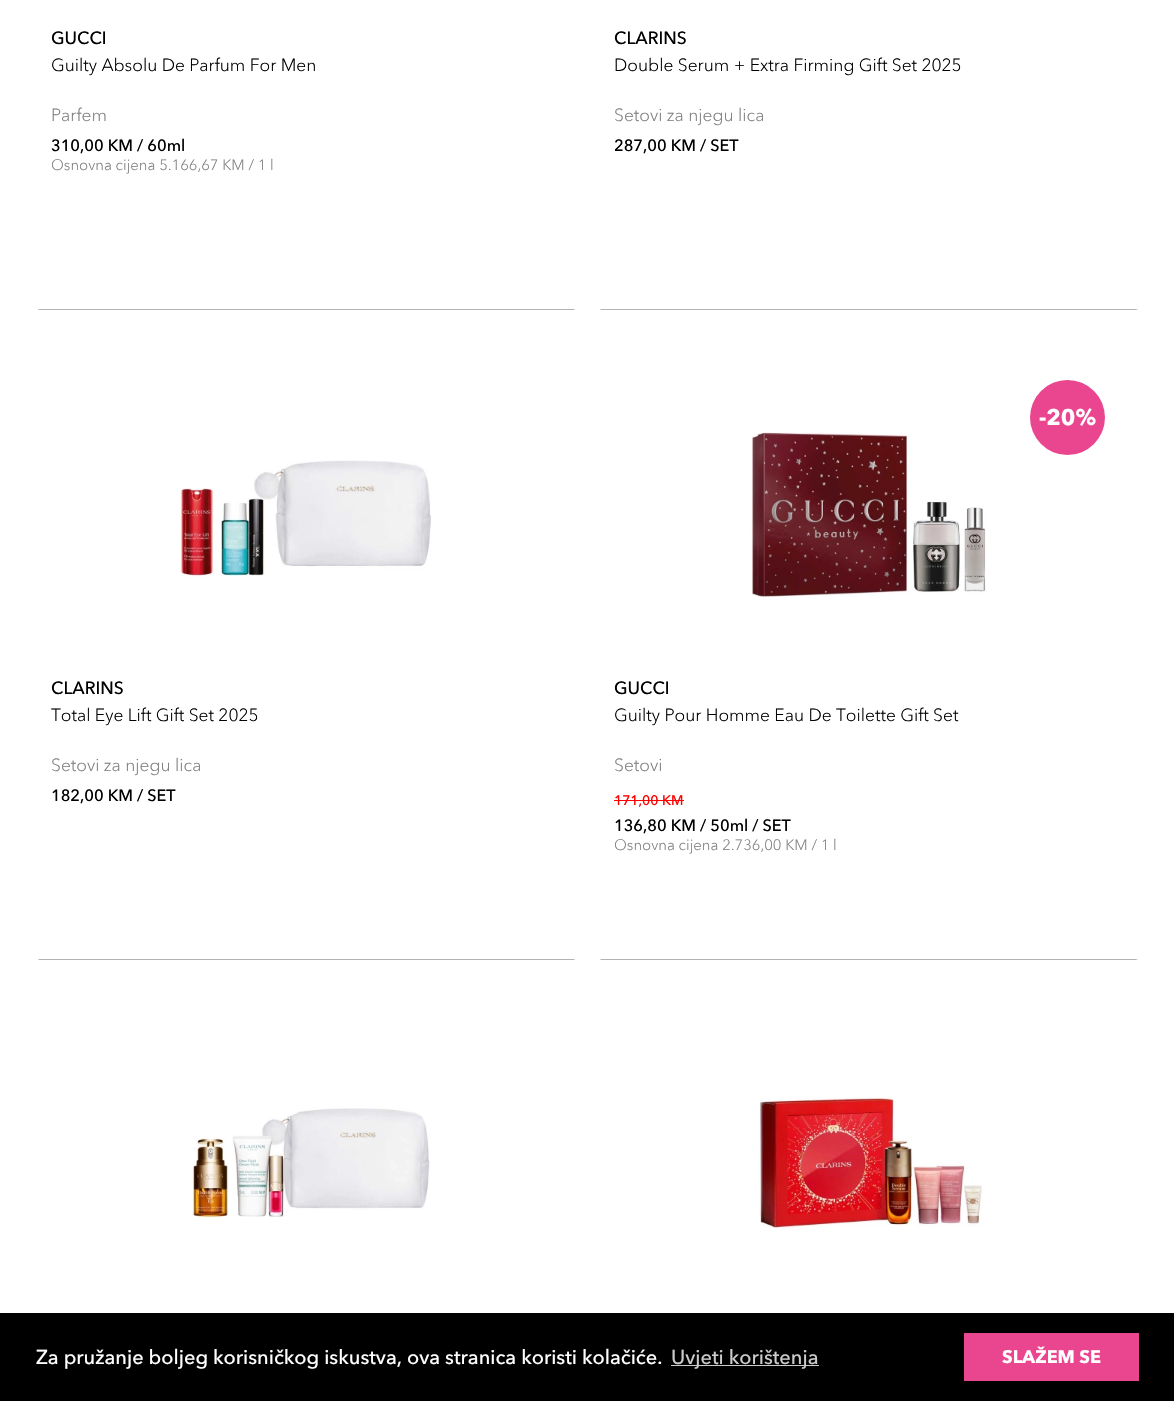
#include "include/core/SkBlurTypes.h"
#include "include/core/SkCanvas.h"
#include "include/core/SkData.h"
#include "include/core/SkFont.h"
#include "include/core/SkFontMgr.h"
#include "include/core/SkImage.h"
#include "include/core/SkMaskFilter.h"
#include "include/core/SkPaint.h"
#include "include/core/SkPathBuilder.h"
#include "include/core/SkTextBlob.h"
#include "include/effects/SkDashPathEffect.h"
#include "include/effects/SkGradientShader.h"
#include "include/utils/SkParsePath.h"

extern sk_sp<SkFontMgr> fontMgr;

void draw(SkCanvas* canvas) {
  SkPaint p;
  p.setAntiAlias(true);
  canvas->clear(SK_ColorWHITE);
  p.setColor(SkColorSetRGB(179, 179, 179));
  canvas->drawPath(SkPathBuilder().moveTo(575, 310).lineTo(38, 310).lineTo(39, 309).lineTo(574, 309).close().detach(), p);
  canvas->drawPath(SkPathBuilder().moveTo(1138, 310).lineTo(600, 310).lineTo(601, 309).lineTo(1136, 309).close().detach(), p);
  canvas->drawPath(SkPathBuilder().moveTo(575, 960).lineTo(38, 960).lineTo(39, 959).lineTo(574, 959).close().detach(), p);
  canvas->drawImageRect(SkImages::DeferredFromEncodedData(SkData::MakeFromFileName("images/1.png")), SkRect::MakeLTRB(180, 460, 431, 577), SkSamplingOptions());
  canvas->drawPath(SkPathBuilder().moveTo(1138, 960).lineTo(600, 960).lineTo(601, 959).lineTo(1136, 959).close().detach(), p);
  p.setColor(SkColorSetRGB(234, 70, 143));
  canvas->drawCircle(1067.5f, 417.5f, 37.5f, p);
  canvas->drawImageRect(SkImages::DeferredFromEncodedData(SkData::MakeFromFileName("images/2.png")), SkRect::MakeLTRB(751, 432, 986, 597), SkSamplingOptions());
  p.setColor(SkColorSetRGB(255, 0, 0));
  canvas->drawRect(SkRect::MakeLTRB(614, 800, 684, 801), p);
  canvas->drawImageRect(SkImages::DeferredFromEncodedData(SkData::MakeFromFileName("images/3.png")), SkRect::MakeLTRB(192, 1108, 430, 1218), SkSamplingOptions());
  canvas->drawImageRect(SkImages::DeferredFromEncodedData(SkData::MakeFromFileName("images/4.png")), SkRect::MakeLTRB(759, 1097, 983, 1229), SkSamplingOptions());
  p.setColor(SK_ColorBLACK);
  canvas->drawRect(SkRect::MakeLTRB(0, 1313, 1174, 1401), p);
  p.setColor(SkColorSetRGB(204, 204, 204));
  canvas->drawRect(SkRect::MakeLTRB(671, 1365, 819, 1366), p);
  p.setColor(SkColorSetRGB(234, 70, 143));
  canvas->drawRect(SkRect::MakeLTRB(964, 1333, 1139, 1381), p);
  SkFont font1(fontMgr->matchFamilyStyle("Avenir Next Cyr", SkFontStyle(500, SkFontStyle::kNormal_Width, SkFontStyle::kUpright_Slant)), 17.5f);
  font1.setSubpixel(true);
  p.setColor(SK_ColorBLACK);
  canvas->drawString("GUCCI", 51, 44, font1, p);
  SkFont font2(fontMgr->matchFamilyStyle("Avenir Next Cyr", SkFontStyle(300, SkFontStyle::kNormal_Width, SkFontStyle::kUpright_Slant)), 17.5f);
  font2.setSubpixel(true);
  canvas->drawString("Guilty Absolu De Parfum For Men", 51, 71, font2, p);
  p.setColor(SkColorSetRGB(128, 128, 128));
  canvas->drawString("Parfem", 51, 121, font2, p);
  SkFont font3(fontMgr->matchFamilyStyle("Avenir Next Cyr", SkFontStyle(500, SkFontStyle::kNormal_Width, SkFontStyle::kUpright_Slant)), 16.25f);
  font3.setSubpixel(true);
  p.setColor(SK_ColorBLACK);
  canvas->drawString("310,00 KM / 60ml", 51, 151, font3, p);
  SkFont font4(fontMgr->matchFamilyStyle("Avenir Next Cyr", SkFontStyle(300, SkFontStyle::kNormal_Width, SkFontStyle::kUpright_Slant)), 15);
  font4.setSubpixel(true);
  p.setColor(SkColorSetRGB(128, 128, 128));
  canvas->drawString("Osnovna cijena 5.166,67 KM / 1 l", 51, 170, font4, p);
  p.setColor(SK_ColorBLACK);
  canvas->drawString("CLARINS", 614, 44, font1, p);
  canvas->drawString("Double Serum + Extra Firming Gift Set 2025", 614, 71, font2, p);
  p.setColor(SkColorSetRGB(128, 128, 128));
  canvas->drawString("Setovi za njegu lica", 614, 121, font2, p);
  p.setColor(SK_ColorBLACK);
  canvas->drawString("287,00 KM / SET", 614, 151, font3, p);
  canvas->drawString("CLARINS", 51, 694, font1, p);
  canvas->drawString("Total Eye Lift Gift Set 2025", 51, 721, font2, p);
  p.setColor(SkColorSetRGB(128, 128, 128));
  canvas->drawString("Setovi za njegu lica", 51, 771, font2, p);
  p.setColor(SK_ColorBLACK);
  canvas->drawString("182,00 KM / SET", 51, 801, font3, p);
  SkFont font5(fontMgr->matchFamilyStyle("Avenir Next Cyr", SkFontStyle::Bold()), 22.5f);
  font5.setSubpixel(true);
  p.setColor(SK_ColorWHITE);
  canvas->drawString("-20%", 1039, 425, font5, p);
  p.setColor(SK_ColorBLACK);
  canvas->drawString("GUCCI", 614, 694, font1, p);
  canvas->drawString("Guilty Pour Homme Eau De Toilette Gift Set", 614, 721, font2, p);
  p.setColor(SkColorSetRGB(128, 128, 128));
  canvas->drawString("Setovi", 614, 771, font2, p);
  SkFont font6(fontMgr->matchFamilyStyle("Avenir Next Cyr", SkFontStyle(500, SkFontStyle::kNormal_Width, SkFontStyle::kUpright_Slant)), 13.75f);
  font6.setSubpixel(true);
  p.setColor(SkColorSetRGB(255, 0, 0));
  canvas->drawString("171,00 KM", 614, 805, font6, p);
  p.setColor(SK_ColorBLACK);
  canvas->drawString("136,80 KM / 50ml / SET", 614, 831, font3, p);
  p.setColor(SkColorSetRGB(128, 128, 128));
  canvas->drawString("Osnovna cijena 2.736,00 KM / 1 l", 614, 850, font4, p);
  SkFont font7(fontMgr->matchFamilyStyle("Avenir Next Cyr", SkFontStyle(500, SkFontStyle::kNormal_Width, SkFontStyle::kUpright_Slant)), 20);
  font7.setSubpixel(true);
  p.setColor(SK_ColorWHITE);
  canvas->drawString("Za pružanje boljeg korisničkog iskustva, ova stranica koristi kolačiće.", 36, 1364, font7, p);
  p.setColor(SkColorSetRGB(204, 204, 204));
  canvas->drawString("Uvjeti korištenja", 671, 1364, font7, p);
  SkFont font8(fontMgr->matchFamilyStyle("Avenir Next Cyr", SkFontStyle::Bold()), 18);
  font8.setSubpixel(true);
  p.setColor(SK_ColorWHITE);
  canvas->drawString("SLAŽEM SE", 1002, 1363, font8, p);
}
